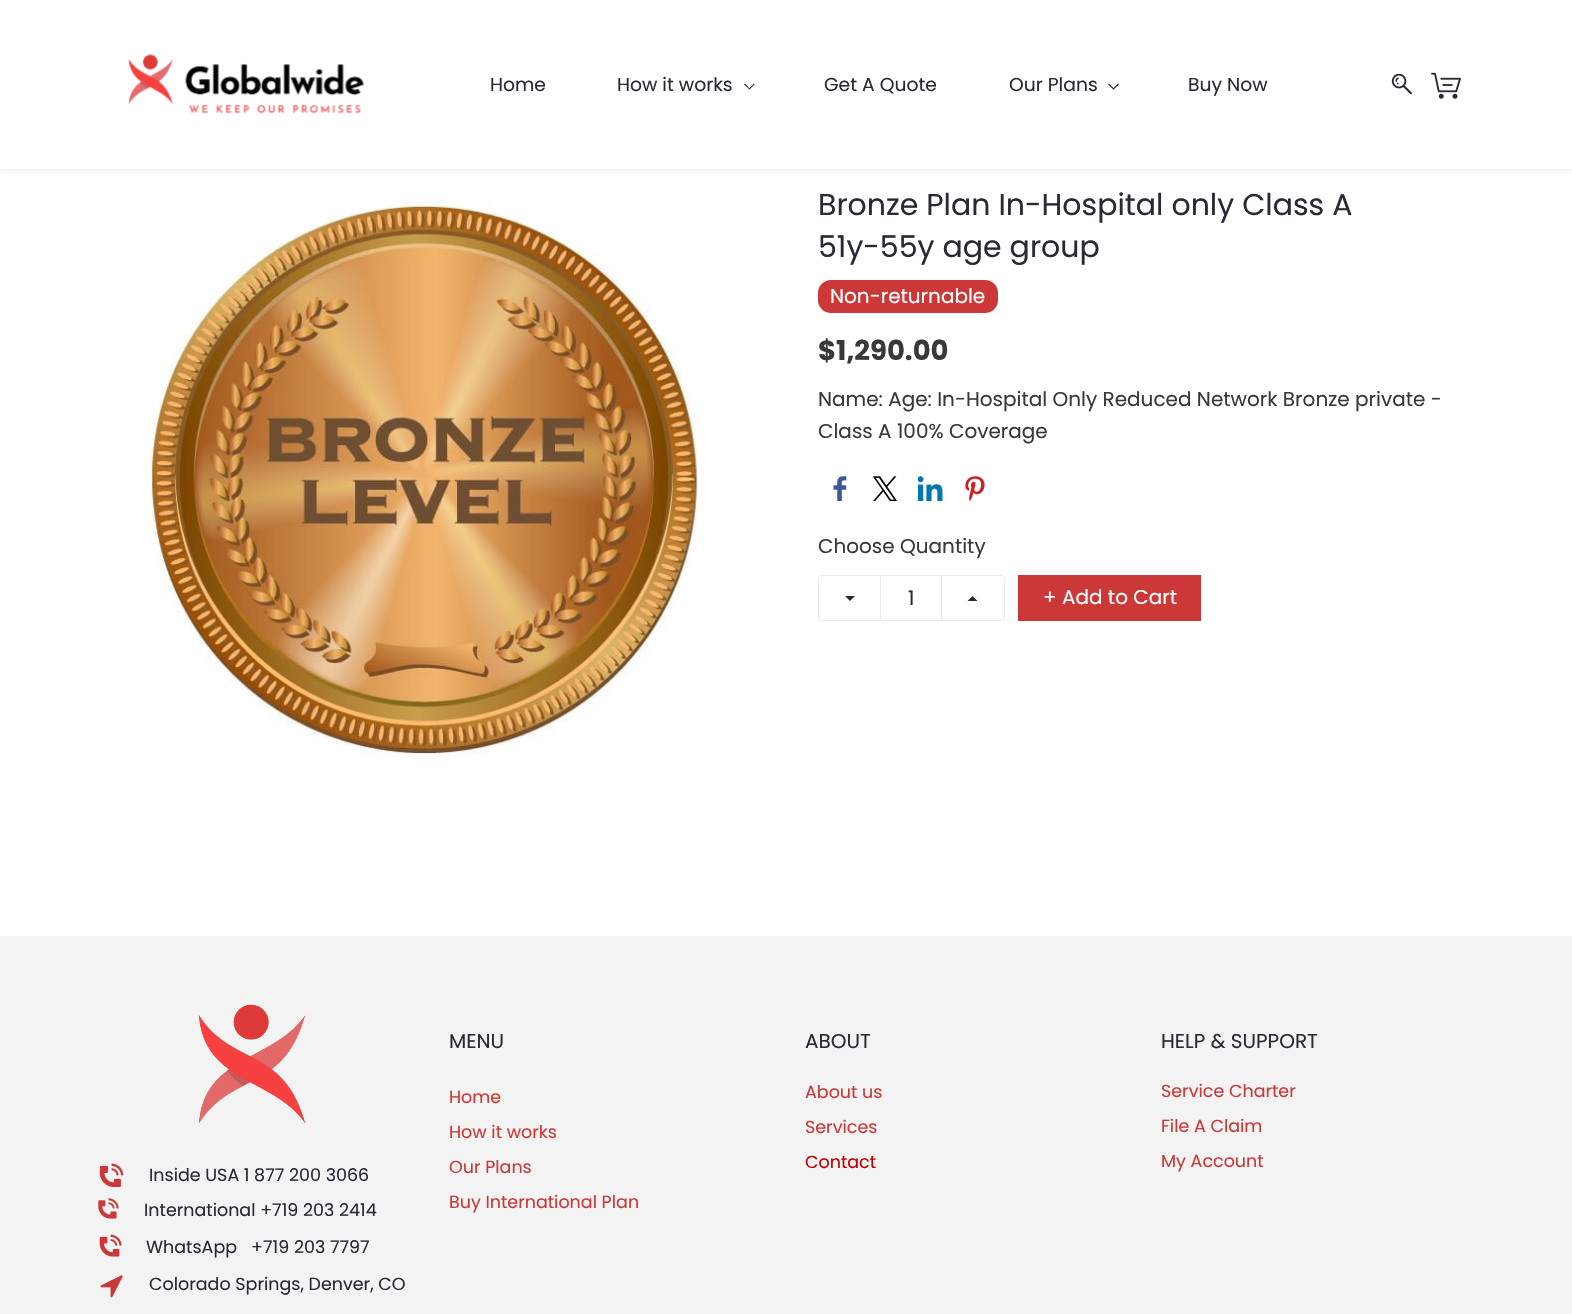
#include "include/core/SkBlurTypes.h"
#include "include/core/SkCanvas.h"
#include "include/core/SkData.h"
#include "include/core/SkFont.h"
#include "include/core/SkFontMgr.h"
#include "include/core/SkImage.h"
#include "include/core/SkMaskFilter.h"
#include "include/core/SkPaint.h"
#include "include/core/SkPathBuilder.h"
#include "include/core/SkTextBlob.h"
#include "include/effects/SkDashPathEffect.h"
#include "include/effects/SkGradientShader.h"
#include "include/utils/SkParsePath.h"

extern sk_sp<SkFontMgr> fontMgr;

void draw(SkCanvas* canvas) {
  SkPaint p;
  p.setAntiAlias(true);
  canvas->clear(SK_ColorWHITE);
  canvas->save();
  canvas->clipPath(SkPathBuilder(SkPathFillType::kEvenOdd).moveTo(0, 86).lineTo(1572, 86).lineTo(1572, 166).lineTo(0, 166).close().moveTo(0, 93).lineTo(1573, 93).lineTo(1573, 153).lineTo(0, 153).close().detach(), true);
  p.setColor(SkColorSetARGB(13, 0, 0, 0));
  p.setMaskFilter(SkMaskFilter::MakeBlur(kNormal_SkBlurStyle, 3));
  canvas->drawRect(SkRect::MakeLTRB(0, 96, 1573, 156), p);
  p.setMaskFilter(nullptr);
  canvas->restore();
  canvas->save();
  canvas->clipRect(SkRect::MakeLTRB(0, 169, 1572, 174));
  p.setMaskFilter(SkMaskFilter::MakeBlur(kNormal_SkBlurStyle, 3));
  canvas->drawRect(SkRect::MakeLTRB(0, 4, 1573, 173), p);
  p.setMaskFilter(nullptr);
  canvas->restore();
  p.setColor(SkColorSetARGB(230, 255, 255, 255));
  canvas->drawRect(SkRect::MakeLTRB(0, 152, 1572, 169), p);
  canvas->drawImageRect(SkImages::DeferredFromEncodedData(SkData::MakeFromFileName("images/1.png")), SkRect::MakeLTRB(128, 54, 365, 114), SkSamplingOptions());
  p.setColor(SkColorSetRGB(40, 42, 52));
  canvas->drawPath(SkPathBuilder().moveTo(754.5f, 84.5f).lineTo(749.5f, 89.5f).lineTo(748.5f, 89).lineTo(754, 83.5f).close().detach(), p);
  canvas->drawPath(SkPathBuilder().moveTo(750, 89).lineTo(749.5f, 89.5f).lineTo(744, 84.5f).lineTo(745, 83.5f).close().detach(), p);
  canvas->drawPath(SkPathBuilder().moveTo(1119, 84.5f).lineTo(1113.5f, 89.5f).lineTo(1112.5f, 89).lineTo(1118, 83.5f).close().detach(), p);
  canvas->drawPath(SkPathBuilder().moveTo(1114.5f, 89).lineTo(1113.5f, 89.5f).lineTo(1108, 84.5f).lineTo(1109, 83.5f).close().detach(), p);
  canvas->drawImageRect(SkImages::DeferredFromEncodedData(SkData::MakeFromFileName("images/2.png")), SkRect::MakeLTRB(1391, 74, 1412, 95), SkSamplingOptions());
  canvas->drawImageRect(SkImages::DeferredFromEncodedData(SkData::MakeFromFileName("images/3.png")), SkRect::MakeLTRB(1431, 72, 1461, 99), SkSamplingOptions());
  canvas->drawImageRect(SkImages::DeferredFromEncodedData(SkData::MakeFromFileName("images/4.png")), SkRect::MakeLTRB(144, 200, 699, 754), SkSamplingOptions());
  p.setColor(SkColorSetRGB(204, 55, 55));
  canvas->drawRoundRect(SkRect::MakeLTRB(818, 280, 998, 313), 13, 13, p);
  canvas->drawImageRect(SkImages::DeferredFromEncodedData(SkData::MakeFromFileName("images/5.png")), SkRect::MakeLTRB(833, 476, 847, 501), SkSamplingOptions());
  canvas->drawImageRect(SkImages::DeferredFromEncodedData(SkData::MakeFromFileName("images/6.png")), SkRect::MakeLTRB(873, 476, 897, 501), SkSamplingOptions());
  canvas->drawImageRect(SkImages::DeferredFromEncodedData(SkData::MakeFromFileName("images/7.png")), SkRect::MakeLTRB(918, 476, 943, 501), SkSamplingOptions());
  canvas->drawImageRect(SkImages::DeferredFromEncodedData(SkData::MakeFromFileName("images/8.png")), SkRect::MakeLTRB(965, 476, 985, 501), SkSamplingOptions());
  p.setStyle(SkPaint::kStroke_Style);
  p.setStrokeWidth(1);
  p.setColor(SkColorSetRGB(235, 235, 235));
  canvas->drawRoundRect(SkRect::MakeLTRB(818.5f, 575.5f, 1004.5f, 620.5f), 3.5f, 3.5f, p);
  p.setStyle(SkPaint::kFill_Style);
  p.setColor(SK_ColorWHITE);
  canvas->drawPath(SkPathBuilder().moveTo(821.5f, 576).lineTo(880, 576).lineTo(880, 620).lineTo(821.5f, 620).cubicTo(820, 620, 819, 619, 819, 617.5f).lineTo(819, 578.5f).cubicTo(819, 577, 820, 576, 821.5f, 576).close().detach(), p);
  p.setColor(SkColorSetRGB(235, 235, 235));
  canvas->drawRect(SkRect::MakeLTRB(941, 576, 942, 620), p);
  canvas->drawRect(SkRect::MakeLTRB(880, 576, 881, 620), p);
  p.setColor(SK_ColorWHITE);
  canvas->drawPath(SkPathBuilder().moveTo(943, 576).lineTo(1001.5f, 576).cubicTo(1003, 576, 1004, 577, 1004, 578.5f).lineTo(1004, 617.5f).cubicTo(1004, 619, 1003, 620, 1001.5f, 620).lineTo(943, 620).close().detach(), p);
  p.setColor(SkColorSetRGB(40, 42, 52));
  canvas->drawPath(SkPathBuilder().moveTo(845, 596).lineTo(855, 596).lineTo(850, 601).close().detach(), p);
  canvas->drawPath(SkPathBuilder().moveTo(977.5f, 601).lineTo(967.5f, 601).lineTo(972.5f, 596).close().detach(), p);
  p.setColor(SkColorSetRGB(204, 55, 55));
  canvas->drawRect(SkRect::MakeLTRB(1018, 575, 1201, 621), p);
  p.setColor(SkColorSetRGB(243, 243, 244));
  canvas->drawRect(SkRect::MakeLTRB(0, 936, 1572, 1314), p);
  canvas->drawImageRect(SkImages::DeferredFromEncodedData(SkData::MakeFromFileName("images/9.png")), SkRect::MakeLTRB(198, 1004, 306, 1124), SkSamplingOptions());
  canvas->drawImageRect(SkImages::DeferredFromEncodedData(SkData::MakeFromFileName("images/10.png")), SkRect::MakeLTRB(99, 1163, 124, 1187), SkSamplingOptions());
  canvas->drawImageRect(SkImages::DeferredFromEncodedData(SkData::MakeFromFileName("images/11.png")), SkRect::MakeLTRB(98, 1198, 119, 1219), SkSamplingOptions());
  canvas->drawImageRect(SkImages::DeferredFromEncodedData(SkData::MakeFromFileName("images/12.png")), SkRect::MakeLTRB(99, 1234, 122, 1257), SkSamplingOptions());
  canvas->drawImageRect(SkImages::DeferredFromEncodedData(SkData::MakeFromFileName("images/13.png")), SkRect::MakeLTRB(100, 1275, 123, 1298), SkSamplingOptions());
  SkFont font1(fontMgr->matchFamilyStyle("Poppins", SkFontStyle::Normal()), 18.75f);
  font1.setSubpixel(true);
  p.setColor(SkColorSetRGB(40, 42, 52));
  canvas->drawString("Home", 490, 91, font1, p);
  canvas->drawString("How it works", 617, 91, font1, p);
  canvas->drawString("Get A Quote", 824, 91, font1, p);
  canvas->drawString("Our Plans", 1009, 91, font1, p);
  canvas->drawString("Buy Now", 1188, 91, font1, p);
  SkFont font2(fontMgr->matchFamilyStyle("Poppins", SkFontStyle::Normal()), 30);
  font2.setSubpixel(true);
  canvas->drawString("Bronze Plan In-Hospital only Class A", 818, 215, font2, p);
  canvas->drawString("51y-55y age group", 818, 257, font2, p);
  SkFont font3(fontMgr->matchFamilyStyle("Poppins", SkFontStyle::Normal()), 20);
  font3.setSubpixel(true);
  p.setColor(SK_ColorWHITE);
  canvas->drawString("Non-returnable", 830, 303, font3, p);
  SkFont font4(fontMgr->matchFamilyStyle("Poppins", SkFontStyle::Bold()), 27.5f);
  font4.setSubpixel(true);
  p.setColor(SkColorSetRGB(57, 57, 57));
  canvas->drawString("$1,290.00", 818, 360, font4, p);
  canvas->drawString("Name: Age: In-Hospital Only Reduced Network Bronze private -", 818, 406, font3, p);
  canvas->drawString("Class A 100% Coverage", 818, 438, font3, p);
  canvas->drawString("Choose Quantity", 818, 553, font3, p);
  p.setColor(SkColorSetRGB(40, 42, 52));
  canvas->drawString("1", 908, 605, font3, p);
  p.setColor(SK_ColorWHITE);
  canvas->drawString("+ Add to Cart", 1043, 604, font3, p);
  p.setColor(SkColorSetRGB(40, 42, 52));
  canvas->drawString("MENU", 449, 1048, font3, p);
  SkFont font5(fontMgr->matchFamilyStyle("Poppins", SkFontStyle::Normal()), 17.5f);
  font5.setSubpixel(true);
  p.setColor(SkColorSetRGB(204, 55, 55));
  canvas->drawString("Home", 449, 1103, font5, p);
  canvas->drawString("How it works", 449, 1138, font5, p);
  canvas->drawString("Our Plans", 449, 1173, font5, p);
  canvas->drawString("Buy International Plan", 449, 1208, font5, p);
  p.setColor(SkColorSetRGB(40, 42, 52));
  canvas->drawString("ABOUT", 805, 1048, font3, p);
  p.setColor(SkColorSetRGB(204, 55, 55));
  canvas->drawString("About us", 805, 1098, font5, p);
  canvas->drawString("Services", 805, 1133, font5, p);
  p.setColor(SkColorSetRGB(192, 0, 0));
  canvas->drawString("Contact", 805, 1168, font5, p);
  p.setColor(SkColorSetRGB(40, 42, 52));
  canvas->drawString("HELP & SUPPORT", 1161, 1048, font3, p);
  p.setColor(SkColorSetRGB(204, 55, 55));
  canvas->drawString("Service Charter", 1161, 1097, font5, p);
  canvas->drawString("File A Claim", 1161, 1132, font5, p);
  canvas->drawString("My Account", 1161, 1167, font5, p);
  p.setColor(SkColorSetRGB(40, 42, 52));
  canvas->drawString("Inside USA 1 877 200 3066", 149, 1181, font5, p);
  canvas->drawString("International +719 203 2414", 144, 1216, font5, p);
  canvas->drawString("WhatsApp   +719 203 7797", 146, 1253, font5, p);
  canvas->drawString("Colorado Springs, Denver, CO", 149, 1290, font5, p);
}
